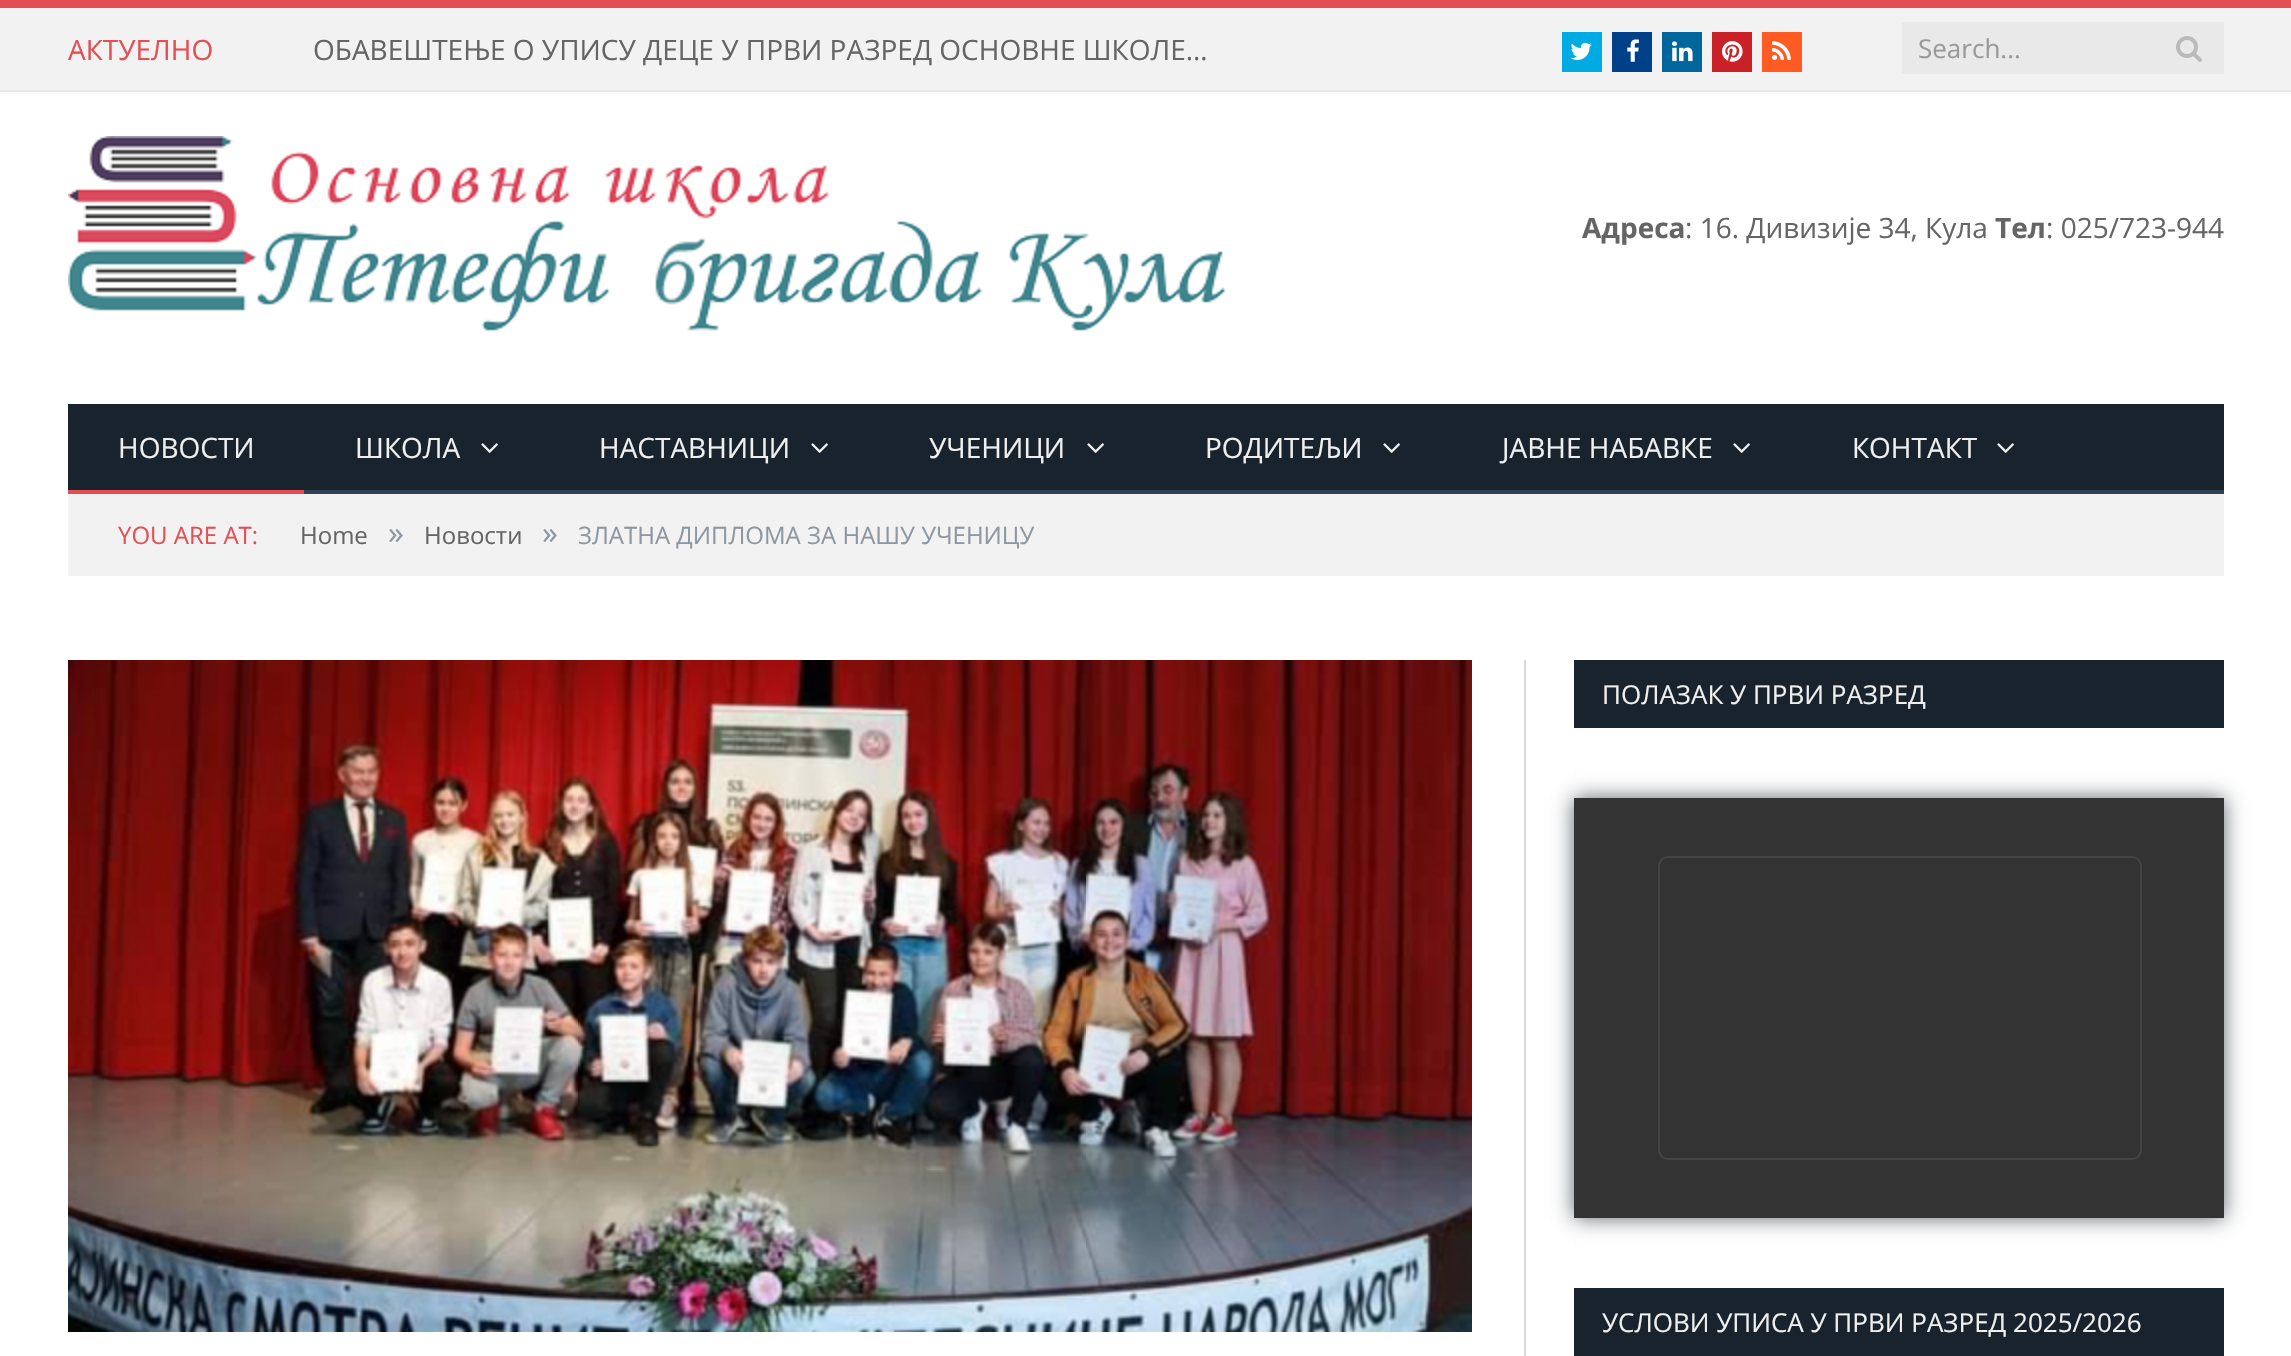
#include "include/core/SkBlurTypes.h"
#include "include/core/SkCanvas.h"
#include "include/core/SkData.h"
#include "include/core/SkFont.h"
#include "include/core/SkFontMgr.h"
#include "include/core/SkImage.h"
#include "include/core/SkMaskFilter.h"
#include "include/core/SkPaint.h"
#include "include/core/SkPathBuilder.h"
#include "include/core/SkTextBlob.h"
#include "include/effects/SkDashPathEffect.h"
#include "include/effects/SkGradientShader.h"
#include "include/utils/SkParsePath.h"

extern sk_sp<SkFontMgr> fontMgr;

void draw(SkCanvas* canvas) {
  SkPaint p;
  p.setAntiAlias(true);
  canvas->clear(SK_ColorWHITE);
  p.setColor(SkColorSetRGB(242, 242, 242));
  canvas->drawRect(SkRect::MakeLTRB(0, 8, 2291, 90), p);
  p.setColor(SkColorSetRGB(229, 78, 83));
  canvas->drawRect(SkRect::MakeLTRB(0, 0, 2291, 8), p);
  p.setColor(SkColorSetRGB(231, 231, 231));
  canvas->drawRect(SkRect::MakeLTRB(0, 90, 2291, 92), p);
  p.setColor(SkColorSetRGB(0, 171, 227));
  canvas->drawRect(SkRect::MakeLTRB(1562, 32, 1602, 72), p);
  canvas->drawImageRect(SkImages::DeferredFromEncodedData(SkData::MakeFromFileName("images/1.png")), SkRect::MakeLTRB(1570, 42, 1592, 60), SkSamplingOptions());
  p.setColor(SkColorSetRGB(0, 64, 136));
  canvas->drawRect(SkRect::MakeLTRB(1612, 32, 1652, 72), p);
  canvas->drawImageRect(SkImages::DeferredFromEncodedData(SkData::MakeFromFileName("images/2.png")), SkRect::MakeLTRB(1627, 39, 1639, 62), SkSamplingOptions());
  p.setColor(SkColorSetRGB(1, 102, 156));
  canvas->drawRect(SkRect::MakeLTRB(1662, 32, 1702, 72), p);
  canvas->drawImageRect(SkImages::DeferredFromEncodedData(SkData::MakeFromFileName("images/3.png")), SkRect::MakeLTRB(1672, 41, 1693, 62), SkSamplingOptions());
  p.setColor(SkColorSetRGB(202, 33, 40));
  canvas->drawRect(SkRect::MakeLTRB(1712, 32, 1752, 72), p);
  canvas->drawImageRect(SkImages::DeferredFromEncodedData(SkData::MakeFromFileName("images/4.png")), SkRect::MakeLTRB(1722, 41, 1743, 62), SkSamplingOptions());
  p.setColor(SkColorSetRGB(255, 91, 34));
  canvas->drawRect(SkRect::MakeLTRB(1762, 32, 1802, 72), p);
  canvas->drawImageRect(SkImages::DeferredFromEncodedData(SkData::MakeFromFileName("images/5.png")), SkRect::MakeLTRB(1772, 41, 1791, 60), SkSamplingOptions());
  p.setColor(SkColorSetRGB(233, 233, 233));
  canvas->drawRect(SkRect::MakeLTRB(1902, 22, 2224, 74), p);
  canvas->drawImageRect(SkImages::DeferredFromEncodedData(SkData::MakeFromFileName("images/6.png")), SkRect::MakeLTRB(2176, 36, 2202, 62), SkSamplingOptions());
  canvas->drawImageRect(SkImages::DeferredFromEncodedData(SkData::MakeFromFileName("images/7.png")), SkRect::MakeLTRB(68, 136, 1227, 331), SkSamplingOptions());
  p.setColor(SkColorSetRGB(25, 35, 45));
  canvas->drawRect(SkRect::MakeLTRB(68, 404, 2224, 490), p);
  p.setColor(SkColorSetRGB(47, 65, 84));
  canvas->drawRect(SkRect::MakeLTRB(304, 490, 2224, 494), p);
  p.setColor(SkColorSetRGB(229, 78, 83));
  canvas->drawRect(SkRect::MakeLTRB(68, 490, 304, 494), p);
  canvas->drawImageRect(SkImages::DeferredFromEncodedData(SkData::MakeFromFileName("images/8.png")), SkRect::MakeLTRB(481, 443, 498, 453), SkSamplingOptions());
  canvas->drawImageRect(SkImages::DeferredFromEncodedData(SkData::MakeFromFileName("images/8.png")), SkRect::MakeLTRB(811, 443, 828, 453), SkSamplingOptions());
  canvas->drawImageRect(SkImages::DeferredFromEncodedData(SkData::MakeFromFileName("images/8.png")), SkRect::MakeLTRB(1087, 443, 1104, 453), SkSamplingOptions());
  canvas->drawImageRect(SkImages::DeferredFromEncodedData(SkData::MakeFromFileName("images/8.png")), SkRect::MakeLTRB(1383, 443, 1400, 453), SkSamplingOptions());
  canvas->drawImageRect(SkImages::DeferredFromEncodedData(SkData::MakeFromFileName("images/8.png")), SkRect::MakeLTRB(1733, 443, 1750, 453), SkSamplingOptions());
  canvas->drawImageRect(SkImages::DeferredFromEncodedData(SkData::MakeFromFileName("images/8.png")), SkRect::MakeLTRB(1997, 443, 2014, 453), SkSamplingOptions());
  p.setColor(SkColorSetRGB(242, 242, 242));
  canvas->drawRect(SkRect::MakeLTRB(68, 494, 2224, 576), p);
  canvas->drawImageRect(SkImages::DeferredFromEncodedData(SkData::MakeFromFileName("images/9.png")), SkRect::MakeLTRB(68, 660, 1472, 1332), SkSamplingOptions());
  p.setColor(SkColorSetRGB(217, 217, 217));
  canvas->drawRect(SkRect::MakeLTRB(1524, 660, 1526, 1356), p);
  p.setColor(SkColorSetRGB(25, 35, 45));
  canvas->drawRect(SkRect::MakeLTRB(1574, 660, 2224, 728), p);
  p.setColor(SkColorSetRGB(96, 101, 105));
  p.setMaskFilter(SkMaskFilter::MakeBlur(kNormal_SkBlurStyle, 10));
  canvas->drawRect(SkRect::MakeLTRB(1574, 798, 2224, 1218), p);
  p.setMaskFilter(nullptr);
  p.setColor(SkColorSetRGB(51, 51, 51));
  canvas->drawRect(SkRect::MakeLTRB(1574, 798, 2224, 1218), p);
  p.setStyle(SkPaint::kStroke_Style);
  p.setStrokeWidth(2);
  p.setColor(SkColorSetRGB(68, 68, 68));
  canvas->drawRoundRect(SkRect::MakeLTRB(1659, 857, 2141, 1159), 9, 9, p);
  p.setStyle(SkPaint::kFill_Style);
  p.setColor(SkColorSetRGB(25, 35, 45));
  canvas->drawRect(SkRect::MakeLTRB(1574, 1288, 2224, 1356), p);
  SkFont font1(fontMgr->matchFamilyStyle("Open Sans", SkFontStyle::Normal()), 28);
  font1.setSubpixel(true);
  p.setColor(SkColorSetRGB(229, 78, 83));
  canvas->drawString("АКТУЕЛНО", 68, 60, font1, p);
  p.setColor(SkColorSetRGB(101, 101, 101));
  canvas->drawString("ОБАВЕШТЕЊЕ О УПИСУ ДЕЦЕ У ПРВИ РАЗРЕД ОСНОВНЕ ШКОЛЕ…", 313, 60, font1, p);
  SkFont font2(fontMgr->matchFamilyStyle("Open Sans", SkFontStyle::Normal()), 26);
  font2.setSubpixel(true);
  p.setColor(SkColorSetRGB(153, 153, 153));
  canvas->drawString("Search...", 1918, 58, font2, p);
  SkFont font3(fontMgr->matchFamilyStyle("Open Sans", SkFontStyle::Bold()), 28);
  font3.setSubpixel(true);
  p.setColor(SkColorSetRGB(101, 101, 101));
  canvas->drawString("Адреса", 1582, 238, font3, p);
  canvas->drawString(": 16. Дивизије 34, Кула", 1685, 238, font1, p);
  canvas->drawString("Тел", 1995, 238, font3, p);
  canvas->drawString(": 025/723-944", 2046, 238, font1, p);
  p.setColor(SkColorSetRGB(239, 239, 239));
  canvas->drawString("НОВОСТИ", 118, 458, font1, p);
  canvas->drawString("ШКОЛА", 355, 458, font1, p);
  canvas->drawString("НАСТАВНИЦИ", 599, 458, font1, p);
  canvas->drawString("УЧЕНИЦИ", 929, 458, font1, p);
  canvas->drawString("РОДИТЕЉИ", 1205, 458, font1, p);
  canvas->drawString("ЈАВНЕ НАБАВКЕ", 1502, 458, font1, p);
  canvas->drawString("КОНТАКТ", 1852, 458, font1, p);
  SkFont font4(fontMgr->matchFamilyStyle("Open Sans", SkFontStyle::Normal()), 24);
  font4.setSubpixel(true);
  p.setColor(SkColorSetRGB(229, 78, 83));
  canvas->drawString("YOU ARE AT:", 118, 544, font4, p);
  p.setColor(SkColorSetRGB(101, 101, 101));
  canvas->drawString("Home", 300, 544, font4, p);
  SkFont font5(fontMgr->matchFamilyStyle("Open Sans", SkFontStyle::Normal()), 32);
  font5.setSubpixel(true);
  p.setColor(SkColorSetRGB(141, 151, 161));
  canvas->drawString("»", 388, 544, font5, p);
  p.setColor(SkColorSetRGB(101, 101, 101));
  canvas->drawString("Новости", 424, 544, font4, p);
  p.setColor(SkColorSetRGB(141, 151, 161));
  canvas->drawString("»", 542, 544, font5, p);
  canvas->drawString("ЗЛАТНА ДИПЛОМА ЗА НАШУ УЧЕНИЦУ", 578, 544, font4, p);
  p.setColor(SkColorSetRGB(239, 239, 239));
  canvas->drawString("ПОЛАЗАК У ПРВИ РАЗРЕД", 1602, 704, font2, p);
  canvas->drawString("УСЛОВИ УПИСА У ПРВИ РАЗРЕД 2025/2026", 1602, 1332, font2, p);
}
